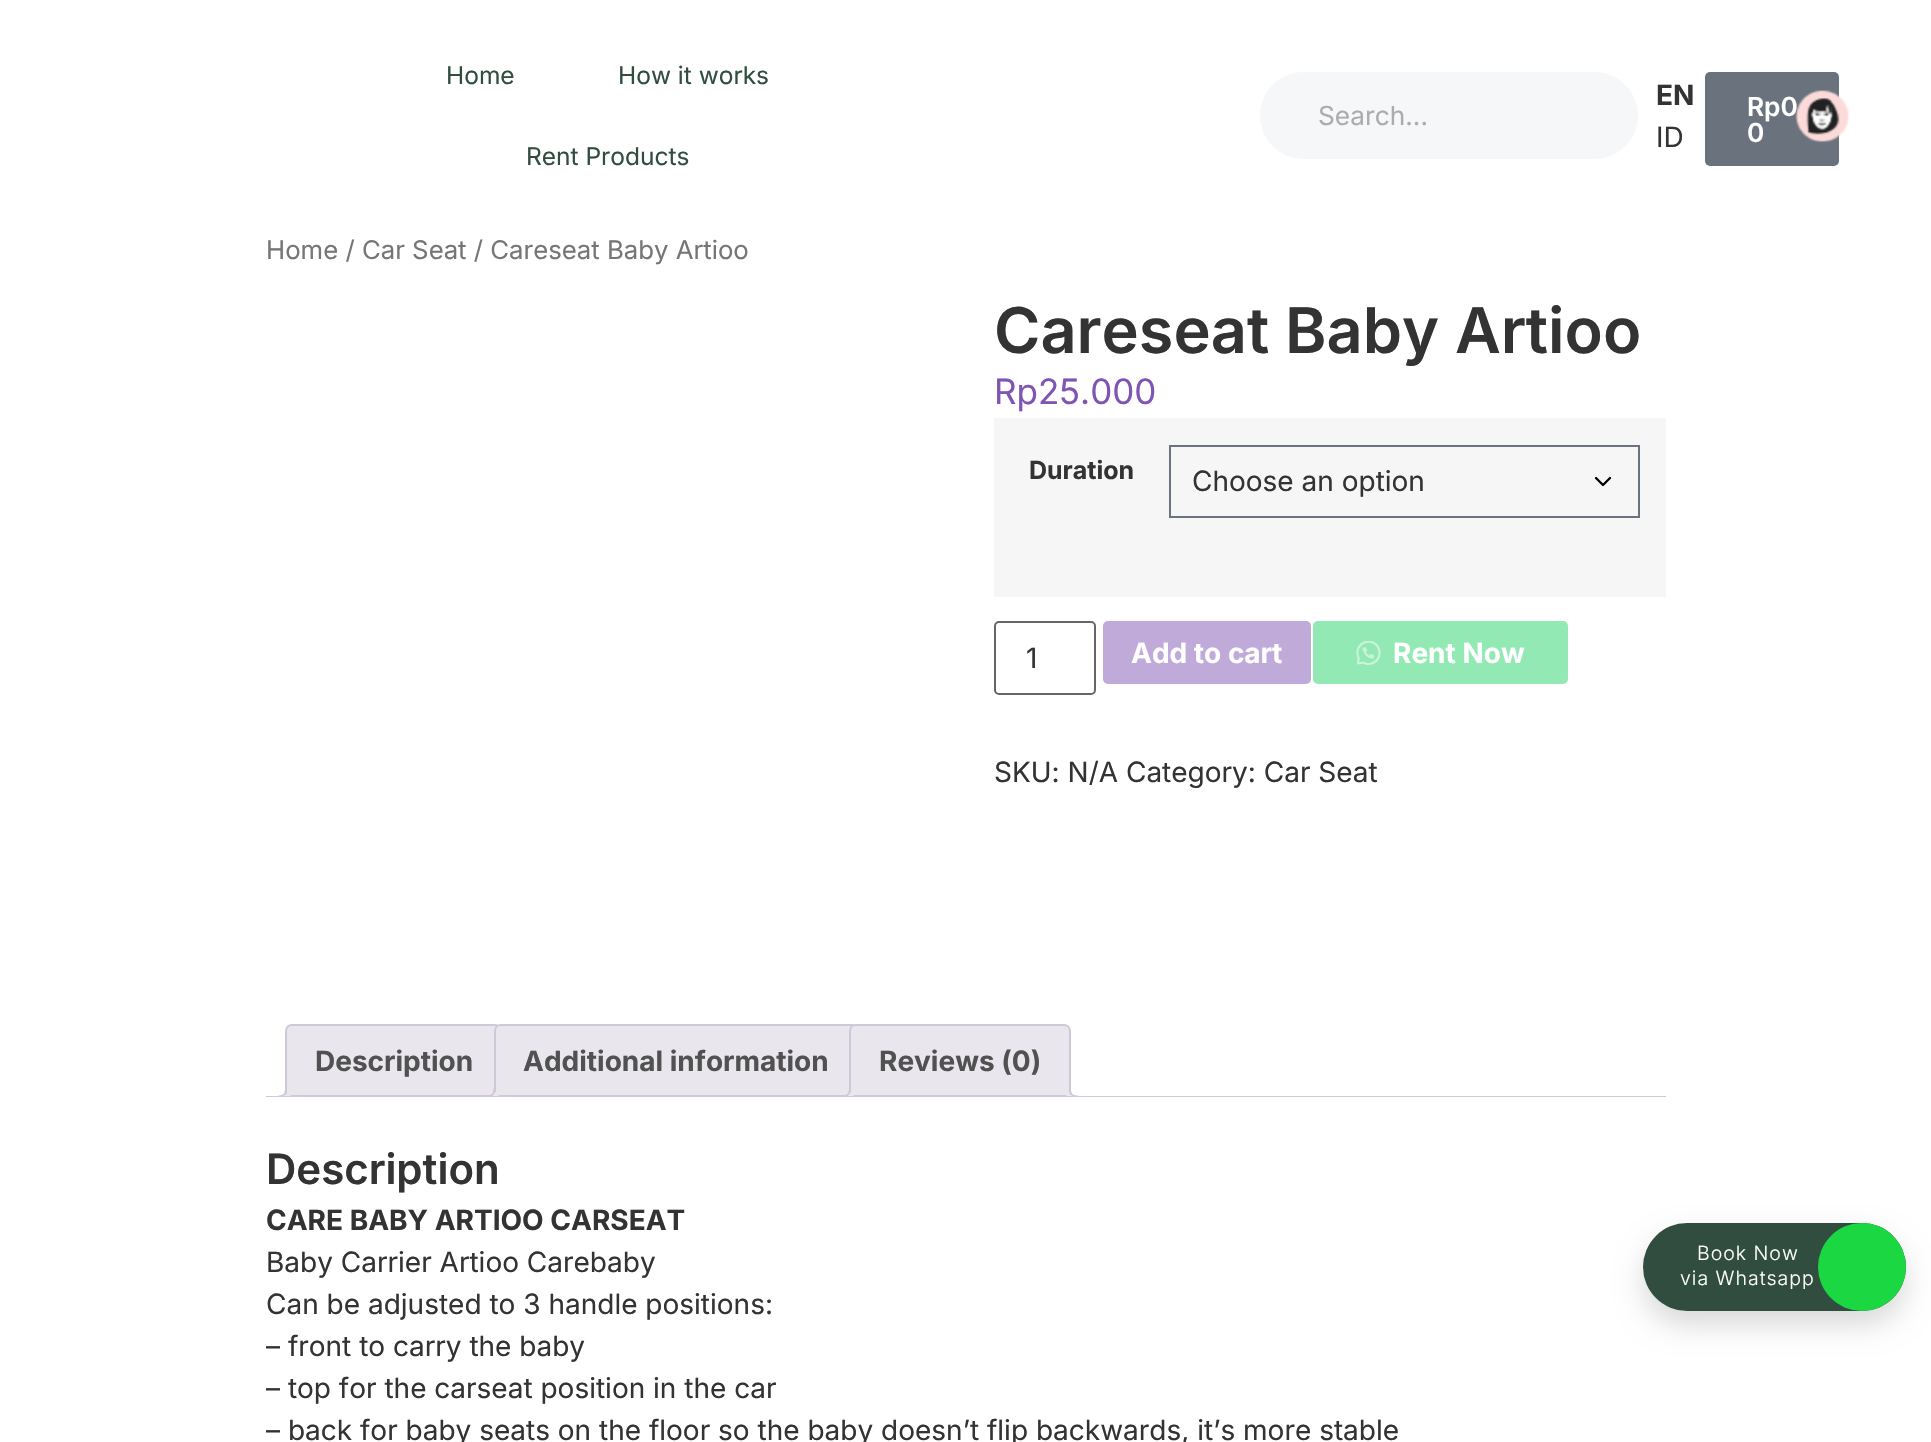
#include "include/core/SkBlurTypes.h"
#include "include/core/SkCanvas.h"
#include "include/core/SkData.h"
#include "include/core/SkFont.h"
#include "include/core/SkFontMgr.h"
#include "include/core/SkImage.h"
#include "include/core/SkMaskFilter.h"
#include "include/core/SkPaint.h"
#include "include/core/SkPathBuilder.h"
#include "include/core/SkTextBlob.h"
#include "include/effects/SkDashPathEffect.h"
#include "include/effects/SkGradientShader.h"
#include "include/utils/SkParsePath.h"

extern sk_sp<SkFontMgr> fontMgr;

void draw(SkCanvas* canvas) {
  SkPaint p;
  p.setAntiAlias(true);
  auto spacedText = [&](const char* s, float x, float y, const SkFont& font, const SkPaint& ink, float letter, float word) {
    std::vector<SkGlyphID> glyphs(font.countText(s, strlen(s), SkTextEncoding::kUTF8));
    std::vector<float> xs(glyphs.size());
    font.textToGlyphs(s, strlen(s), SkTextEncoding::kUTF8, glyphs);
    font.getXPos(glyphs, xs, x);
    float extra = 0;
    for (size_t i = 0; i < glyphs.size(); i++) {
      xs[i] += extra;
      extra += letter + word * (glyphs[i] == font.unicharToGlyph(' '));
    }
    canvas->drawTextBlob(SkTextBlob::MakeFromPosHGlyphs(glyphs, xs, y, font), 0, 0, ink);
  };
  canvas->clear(SK_ColorWHITE);
  p.setColor(SkColorSetRGB(246, 247, 248));
  canvas->drawRoundRect(SkRect::MakeLTRB(1260, 72, 1638, 159), 43.5f, 43.5f, p);
  p.setColor(SkColorSetRGB(105, 114, 125));
  canvas->drawRoundRect(SkRect::MakeLTRB(1705, 72, 1839, 166), 5, 5, p);
  p.setColor(SkColorSetRGB(246, 246, 246));
  canvas->drawRect(SkRect::MakeLTRB(994, 418, 1666, 597), p);
  p.setStyle(SkPaint::kStroke_Style);
  p.setStrokeWidth(2.3f);
  p.setStrokeCap(SkPaint::kRound_Cap);
  p.setStrokeJoin(SkPaint::kRound_Join);
  p.setColor(SK_ColorBLACK);
  canvas->drawPath(SkPathBuilder().moveTo(1596, 478).lineTo(1603, 485).lineTo(1610, 478).detach(), p);
  p.setStrokeWidth(2);
  p.setStrokeCap(SkPaint::kButt_Cap);
  p.setStrokeJoin(SkPaint::kMiter_Join);
  p.setColor(SkColorSetRGB(107, 114, 128));
  canvas->drawRect(SkRect::MakeLTRB(1170, 446, 1639, 517), p);
  p.setColor(SkColorSetRGB(102, 102, 102));
  canvas->drawRoundRect(SkRect::MakeLTRB(995, 622, 1095, 694), 4, 4, p);
  p.setStyle(SkPaint::kFill_Style);
  p.setColor(SkColorSetRGB(191, 170, 217));
  canvas->drawRoundRect(SkRect::MakeLTRB(1103, 621, 1311, 684), 5, 5, p);
  p.setColor(SkColorSetRGB(146, 233, 179));
  canvas->drawRoundRect(SkRect::MakeLTRB(1313, 621, 1568, 684), 5, 5, p);
  canvas->drawImageRect(SkImages::DeferredFromEncodedData(SkData::MakeFromFileName("images/2.png")), SkRect::MakeLTRB(1356, 641, 1381, 665), SkSamplingOptions());
  p.setColor(SkColorSetRGB(233, 230, 237));
  canvas->drawPath(SkPathBuilder().moveTo(292, 1025).lineTo(495, 1025).cubicTo(498.5f, 1025, 501, 1027.5f, 501, 1031).lineTo(501, 1096).lineTo(286, 1096).lineTo(286, 1031).cubicTo(286, 1027.5f, 288.5f, 1025, 292, 1025).close().detach(), p);
  p.setStyle(SkPaint::kStroke_Style);
  p.setColor(SkColorSetRGB(207, 200, 216));
  canvas->drawPath(SkPathBuilder().moveTo(292, 1025).lineTo(495, 1025).cubicTo(498.5f, 1025, 501, 1027.5f, 501, 1031).lineTo(501, 1096).lineTo(286, 1096).lineTo(286, 1031).cubicTo(286, 1027.5f, 288.5f, 1025, 292, 1025).close().detach(), p);
  canvas->save();
  canvas->clipRect(SkRect::MakeLTRB(266, 1024, 1666, 1097));
  p.setStyle(SkPaint::kFill_Style);
  p.setColor(SkColorSetRGB(233, 230, 237));
  canvas->drawPath(SkPathBuilder().moveTo(282, 1097).lineTo(282, 1101).cubicTo(288.5f, 1101, 291, 1098.5f, 291, 1092).lineTo(287, 1092).cubicTo(286, 1094.5f, 284.5f, 1096.5f, 282, 1097).close().detach(), p);
  canvas->restore();
  p.setColor(SkColorSetRGB(207, 200, 216));
  canvas->drawPath(SkPathBuilder(SkPathFillType::kEvenOdd).moveTo(278, 1088.5f).lineTo(287, 1088.5f).cubicTo(287, 1094.5f, 284.5f, 1097, 278, 1097).close().moveTo(278, 1088.5f).lineTo(285, 1088.5f).cubicTo(285, 1093.5f, 283.5f, 1095.5f, 278, 1095.5f).close().detach(), p);
  p.setColor(SkColorSetRGB(233, 230, 237));
  canvas->drawPath(SkPathBuilder().moveTo(501, 1025).lineTo(852, 1025).cubicTo(855.5f, 1025, 858, 1027.5f, 858, 1031).lineTo(858, 1096).lineTo(495, 1096).lineTo(495, 1031).cubicTo(495, 1027.5f, 497.5f, 1025, 501, 1025).close().detach(), p);
  p.setStyle(SkPaint::kStroke_Style);
  p.setColor(SkColorSetRGB(207, 200, 216));
  canvas->drawPath(SkPathBuilder().moveTo(501, 1025).lineTo(852, 1025).cubicTo(855.5f, 1025, 858, 1027.5f, 858, 1031).lineTo(858, 1096).lineTo(495, 1096).lineTo(495, 1031).cubicTo(495, 1027.5f, 497.5f, 1025, 501, 1025).close().detach(), p);
  canvas->save();
  canvas->clipRect(SkRect::MakeLTRB(266, 1024, 1666, 1097));
  p.setStyle(SkPaint::kFill_Style);
  p.setColor(SkColorSetRGB(233, 230, 237));
  canvas->drawPath(SkPathBuilder().moveTo(490, 1097).lineTo(490, 1101).cubicTo(496.5f, 1101, 499, 1098.5f, 499, 1092).lineTo(495, 1092).cubicTo(494.5f, 1094.5f, 492.5f, 1096.5f, 490, 1097).close().detach(), p);
  canvas->restore();
  p.setColor(SkColorSetRGB(207, 200, 216));
  canvas->drawPath(SkPathBuilder(SkPathFillType::kEvenOdd).moveTo(486.5f, 1088.5f).lineTo(495, 1088.5f).cubicTo(495, 1094.5f, 492.5f, 1097, 486.5f, 1097).close().moveTo(486.5f, 1088.5f).lineTo(493.5f, 1088.5f).cubicTo(493.5f, 1093.5f, 491.5f, 1095.5f, 486.5f, 1095.5f).close().detach(), p);
  p.setColor(SkColorSetRGB(233, 230, 237));
  canvas->drawPath(SkPathBuilder().moveTo(856, 1025).lineTo(1064, 1025).cubicTo(1067.5f, 1025, 1070, 1027.5f, 1070, 1031).lineTo(1070, 1096).lineTo(850, 1096).lineTo(850, 1031).cubicTo(850, 1027.5f, 852.5f, 1025, 856, 1025).close().detach(), p);
  p.setStyle(SkPaint::kStroke_Style);
  p.setColor(SkColorSetRGB(207, 200, 216));
  canvas->drawPath(SkPathBuilder().moveTo(856, 1025).lineTo(1064, 1025).cubicTo(1067.5f, 1025, 1070, 1027.5f, 1070, 1031).lineTo(1070, 1096).lineTo(850, 1096).lineTo(850, 1031).cubicTo(850, 1027.5f, 852.5f, 1025, 856, 1025).close().detach(), p);
  canvas->save();
  canvas->clipRect(SkRect::MakeLTRB(266, 1024, 1666, 1097));
  p.setStyle(SkPaint::kFill_Style);
  p.setColor(SkColorSetRGB(233, 230, 237));
  canvas->drawPath(SkPathBuilder().moveTo(845, 1097).lineTo(845, 1101).cubicTo(851.5f, 1101, 854, 1098.5f, 854, 1092).lineTo(850.5f, 1092).cubicTo(849.5f, 1094.5f, 847.5f, 1096.5f, 845, 1097).close().detach(), p);
  canvas->restore();
  p.setColor(SkColorSetRGB(207, 200, 216));
  canvas->drawPath(SkPathBuilder(SkPathFillType::kEvenOdd).moveTo(842, 1088.5f).lineTo(850.5f, 1088.5f).cubicTo(850.5f, 1094.5f, 848, 1097, 842, 1097).close().moveTo(842, 1088.5f).lineTo(849, 1088.5f).cubicTo(849, 1093.5f, 847, 1095.5f, 842, 1095.5f).close().detach(), p);
  canvas->save();
  canvas->clipRect(SkRect::MakeLTRB(266, 1024, 1666, 1097));
  p.setColor(SkColorSetRGB(233, 230, 237));
  canvas->drawPath(SkPathBuilder().moveTo(1066, 1092).cubicTo(1066, 1098.5f, 1068.5f, 1101, 1075, 1101).lineTo(1075, 1097).cubicTo(1072.5f, 1096.5f, 1070, 1094.5f, 1069.5f, 1092).close().detach(), p);
  canvas->restore();
  p.setColor(SkColorSetRGB(207, 200, 216));
  canvas->drawPath(SkPathBuilder(SkPathFillType::kEvenOdd).moveTo(1069, 1088.5f).lineTo(1078, 1088.5f).lineTo(1078, 1097).cubicTo(1073.5f, 1097, 1069, 1095.5f, 1069, 1090).close().moveTo(1071, 1088.5f).lineTo(1078, 1088.5f).lineTo(1078, 1095.5f).cubicTo(1074.5f, 1095.5f, 1071, 1094.5f, 1071, 1090).close().detach(), p);
  canvas->drawRect(SkRect::MakeLTRB(266, 1096, 1666, 1097), p);
  p.setColor(SkColorSetARGB(38, 0, 0, 0));
  p.setMaskFilter(SkMaskFilter::MakeBlur(kNormal_SkBlurStyle, 14));
  canvas->drawRoundRect(SkRect::MakeLTRB(1643, 1237, 1906, 1325), 44, 44, p);
  p.setMaskFilter(nullptr);
  p.setColor(SkColorSetRGB(49, 77, 64));
  canvas->drawRoundRect(SkRect::MakeLTRB(1643, 1223, 1906, 1311), 44, 44, p);
  p.setColor(SkColorSetRGB(27, 215, 65));
  canvas->drawCircle(1862, 1267, 44, p);
  SkFont font1(fontMgr->matchFamilyStyle("Inter", SkFontStyle::Normal()), 24.5f);
  font1.setSubpixel(true);
  p.setColor(SkColorSetRGB(49, 77, 64));
  canvas->drawString("Home", 446, 84, font1, p);
  canvas->drawString("How it works", 618, 84, font1, p);
  canvas->drawString("Rent Products", 526, 165, font1, p);
  SkFont font2(fontMgr->matchFamilyStyle("Inter", SkFontStyle::Normal()), 26.25f);
  font2.setSubpixel(true);
  p.setColor(SkColorSetRGB(172, 172, 172));
  canvas->drawString("Search...", 1318, 125, font2, p);
  SkFont font3(fontMgr->matchFamilyStyle("Inter", SkFontStyle::Bold()), 28);
  font3.setSubpixel(true);
  p.setColor(SkColorSetRGB(51, 51, 51));
  canvas->drawString("EN", 1656, 105, font3, p);
  SkFont font4(fontMgr->matchFamilyStyle("Inter", SkFontStyle::Normal()), 28);
  font4.setSubpixel(true);
  canvas->drawString("ID", 1656, 147, font4, p);
  SkFont font5(fontMgr->matchFamilyStyle("Inter", SkFontStyle(600, SkFontStyle::kNormal_Width, SkFontStyle::kUpright_Slant)), 26.25f);
  font5.setSubpixel(true);
  p.setColor(SK_ColorWHITE);
  canvas->drawString("Rp0", 1747, 116, font5, p);
  canvas->drawString("0", 1747, 142, font5, p);
  canvas->drawImageRect(SkImages::DeferredFromEncodedData(SkData::MakeFromFileName("images/1.png")), SkRect::MakeLTRB(1795, 90, 1849, 143), SkSamplingOptions());
  SkFont font6(fontMgr->matchFamilyStyle("Inter", SkFontStyle::Normal()), 25.75f);
  font6.setSubpixel(true);
  p.setColor(SkColorSetRGB(118, 118, 118));
  canvas->drawString("Home / Car Seat / Careseat Baby Artioo", 266, 259, font6, p);
  SkFont font7(fontMgr->matchFamilyStyle("Inter", SkFontStyle(600, SkFontStyle::kNormal_Width, SkFontStyle::kUpright_Slant)), 63);
  font7.setSubpixel(true);
  p.setColor(SkColorSetRGB(51, 51, 51));
  canvas->drawString("Careseat Baby Artioo", 994, 353, font7, p);
  SkFont font8(fontMgr->matchFamilyStyle("Inter", SkFontStyle::Normal()), 35);
  font8.setSubpixel(true);
  p.setColor(SkColorSetRGB(127, 84, 179));
  canvas->drawString("Rp25.000", 994, 404, font8, p);
  SkFont font9(fontMgr->matchFamilyStyle("Inter", SkFontStyle::Bold()), 25);
  font9.setSubpixel(true);
  p.setColor(SkColorSetRGB(51, 51, 51));
  canvas->drawString("Duration", 1029, 479, font9, p);
  canvas->drawString("Choose an option", 1192, 491, font4, p);
  canvas->drawString("1", 1026, 668, font4, p);
  p.setColor(SK_ColorWHITE);
  canvas->drawString("Add to cart", 1131, 663, font3, p);
  canvas->drawString("Rent Now", 1393, 663, font3, p);
  p.setColor(SkColorSetRGB(51, 51, 51));
  canvas->drawString("SKU: N/A Category: Car Seat", 994, 782, font4, p);
  p.setColor(SkColorSetRGB(81, 81, 81));
  canvas->drawString("Description", 315, 1071, font3, p);
  canvas->drawString("Additional information", 523, 1071, font3, p);
  canvas->drawString("Reviews (0)", 879, 1071, font3, p);
  SkFont font10(fontMgr->matchFamilyStyle("Inter", SkFontStyle(600, SkFontStyle::kNormal_Width, SkFontStyle::kUpright_Slant)), 42);
  font10.setSubpixel(true);
  p.setColor(SkColorSetRGB(51, 51, 51));
  canvas->drawString("Description", 266, 1184, font10, p);
  canvas->drawString("CARE BABY ARTIOO CARSEAT", 266, 1230, font3, p);
  canvas->drawString("Baby Carrier Artioo Carebaby", 266, 1272, font4, p);
  canvas->drawString("Can be adjusted to 3 handle positions:", 266, 1314, font4, p);
  canvas->drawString("– front to carry the baby", 266, 1356, font4, p);
  canvas->drawString("– top for the carseat position in the car", 266, 1398, font4, p);
  canvas->drawString("– back for baby seats on the floor so the baby doesn’t flip backwards, it’s more stable", 266, 1440, font4, p);
  SkFont font11(fontMgr->matchFamilyStyle("Inter", SkFontStyle(300, SkFontStyle::kNormal_Width, SkFontStyle::kUpright_Slant)), 19.5f);
  font11.setSubpixel(true);
  p.setColor(SK_ColorWHITE);
  spacedText("Book Now", 1697, 1260, font11, p, 1, 0);
  spacedText("via Whatsapp", 1680, 1285, font11, p, 1, 0);
}
